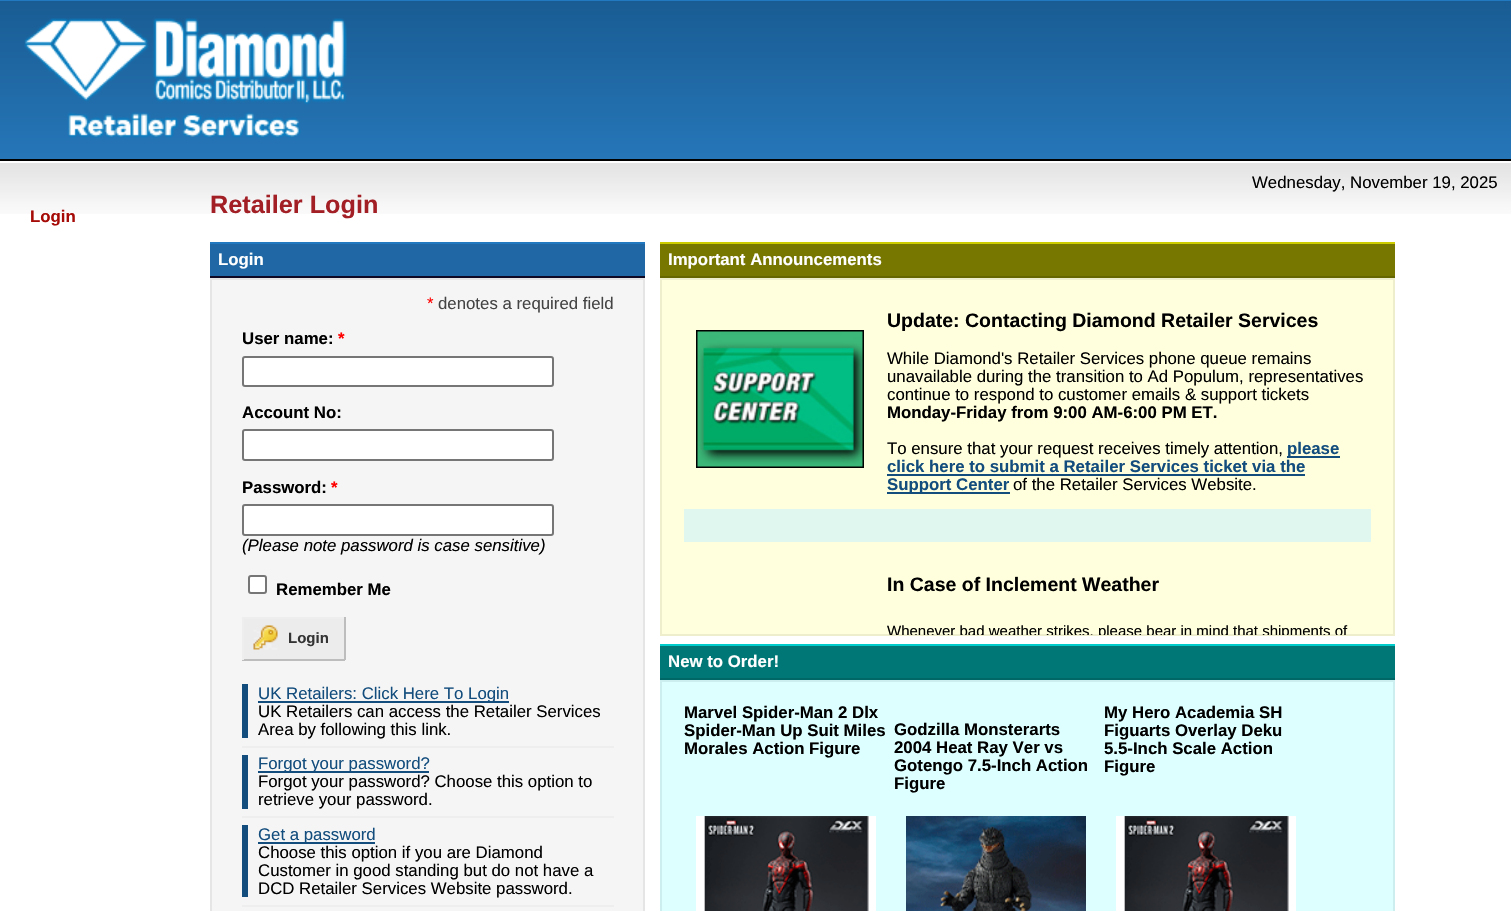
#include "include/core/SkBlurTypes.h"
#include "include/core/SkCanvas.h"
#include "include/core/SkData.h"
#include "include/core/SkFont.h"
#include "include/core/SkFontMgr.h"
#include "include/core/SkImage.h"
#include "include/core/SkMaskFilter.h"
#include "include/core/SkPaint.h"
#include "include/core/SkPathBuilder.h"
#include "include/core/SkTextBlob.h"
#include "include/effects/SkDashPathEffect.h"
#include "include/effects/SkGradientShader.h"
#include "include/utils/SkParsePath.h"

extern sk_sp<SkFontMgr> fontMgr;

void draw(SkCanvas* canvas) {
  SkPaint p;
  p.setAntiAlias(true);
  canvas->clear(SK_ColorWHITE);
  {
    const SkColor colors[] = {SkColorSetRGB(25, 92, 147), SkColorSetRGB(38, 118, 184)};
    const float stops[] = {0, 1};
    const SkPoint ends[] = {{756, 0}, {756, 159}};
    p.setShader(SkGradientShader::MakeLinear(ends, colors, stops, 2, SkTileMode::kClamp));
    p.setAlpha(255);
  }
  canvas->drawRect(SkRect::MakeLTRB(0, 1, 1511, 159), p);
  p.setShader(nullptr);
  p.setColor(SkColorSetRGB(35, 121, 192));
  canvas->drawRect(SkRect::MakeLTRB(0, 0, 1511, 1), p);
  p.setColor(SK_ColorBLACK);
  canvas->drawRect(SkRect::MakeLTRB(0, 159, 1511, 161), p);
  canvas->drawImageRect(SkImages::DeferredFromEncodedData(SkData::MakeFromFileName("images/1.png")), SkRect::MakeLTRB(24, 18, 347, 138), SkSamplingOptions());
  canvas->drawImageRect(SkImages::DeferredFromEncodedData(SkData::MakeFromFileName("images/2.png")), SkRect::MakeLTRB(0, 163, 1511, 214), SkSamplingOptions());
  p.setColor(SkColorSetRGB(31, 104, 165));
  canvas->drawRect(SkRect::MakeLTRB(210, 244, 645, 276), p);
  p.setColor(SkColorSetRGB(35, 121, 192));
  canvas->drawRect(SkRect::MakeLTRB(210, 242, 645, 244), p);
  p.setColor(SkColorSetRGB(15, 8, 37));
  canvas->drawRect(SkRect::MakeLTRB(210, 276, 645, 278), p);
  p.setColor(SkColorSetRGB(245, 245, 245));
  canvas->drawRect(SkRect::MakeLTRB(211, 279, 644, 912), p);
  p.setStyle(SkPaint::kStroke_Style);
  p.setStrokeWidth(2);
  p.setColor(SkColorSetRGB(229, 229, 229));
  canvas->drawRect(SkRect::MakeLTRB(211, 279, 644, 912), p);
  p.setStyle(SkPaint::kFill_Style);
  p.setColor(SK_ColorWHITE);
  canvas->drawRoundRect(SkRect::MakeLTRB(243, 357, 553, 386), 2, 2, p);
  p.setStyle(SkPaint::kStroke_Style);
  p.setColor(SkColorSetRGB(118, 118, 118));
  canvas->drawRoundRect(SkRect::MakeLTRB(243, 357, 553, 386), 2, 2, p);
  p.setStyle(SkPaint::kFill_Style);
  p.setColor(SK_ColorWHITE);
  canvas->drawRoundRect(SkRect::MakeLTRB(243, 430, 553, 460), 2, 2, p);
  p.setStyle(SkPaint::kStroke_Style);
  p.setColor(SkColorSetRGB(118, 118, 118));
  canvas->drawRoundRect(SkRect::MakeLTRB(243, 430, 553, 460), 2, 2, p);
  p.setStyle(SkPaint::kFill_Style);
  p.setColor(SK_ColorWHITE);
  canvas->drawRoundRect(SkRect::MakeLTRB(243, 505, 553, 535), 2, 2, p);
  p.setStyle(SkPaint::kStroke_Style);
  p.setColor(SkColorSetRGB(118, 118, 118));
  canvas->drawRoundRect(SkRect::MakeLTRB(243, 505, 553, 535), 2, 2, p);
  p.setStyle(SkPaint::kFill_Style);
  p.setColor(SK_ColorWHITE);
  canvas->drawRoundRect(SkRect::MakeLTRB(249, 576, 266, 593), 2, 2, p);
  p.setStyle(SkPaint::kStroke_Style);
  p.setColor(SkColorSetRGB(118, 118, 118));
  canvas->drawRoundRect(SkRect::MakeLTRB(249, 576, 266, 593), 2, 2, p);
  p.setStyle(SkPaint::kFill_Style);
  p.setColor(SkColorSetRGB(236, 236, 236));
  canvas->drawRect(SkRect::MakeLTRB(244, 619, 344, 659), p);
  p.setColor(SkColorSetRGB(238, 238, 238));
  canvas->drawRect(SkRect::MakeLTRB(242, 617, 345, 619), p);
  p.setColor(SkColorSetRGB(189, 189, 189));
  canvas->drawRect(SkRect::MakeLTRB(344, 617, 346, 660), p);
  canvas->drawRect(SkRect::MakeLTRB(242, 659, 345, 661), p);
  p.setColor(SkColorSetRGB(238, 238, 238));
  canvas->drawRect(SkRect::MakeLTRB(242, 617, 244, 660), p);
  canvas->drawImageRect(SkImages::DeferredFromEncodedData(SkData::MakeFromFileName("images/3.png")), SkRect::MakeLTRB(253, 625, 278, 650), SkSamplingOptions());
  canvas->drawRect(SkRect::MakeLTRB(242, 746, 614, 748), p);
  p.setColor(SkColorSetRGB(19, 77, 125));
  canvas->drawRect(SkRect::MakeLTRB(242, 684, 248, 738), p);
  canvas->drawRect(SkRect::MakeLTRB(258, 701, 509, 703), p);
  p.setColor(SkColorSetRGB(238, 238, 238));
  canvas->drawRect(SkRect::MakeLTRB(242, 816, 614, 818), p);
  p.setColor(SkColorSetRGB(19, 77, 125));
  canvas->drawRect(SkRect::MakeLTRB(242, 755, 248, 809), p);
  canvas->drawRect(SkRect::MakeLTRB(258, 771, 429, 773), p);
  p.setColor(SkColorSetRGB(238, 238, 238));
  canvas->drawRect(SkRect::MakeLTRB(242, 905, 614, 907), p);
  p.setColor(SkColorSetRGB(19, 77, 125));
  canvas->drawRect(SkRect::MakeLTRB(242, 825, 248, 897), p);
  canvas->drawRect(SkRect::MakeLTRB(258, 842, 375, 844), p);
  p.setColor(SkColorSetRGB(119, 119, 0));
  canvas->drawRect(SkRect::MakeLTRB(660, 244, 1395, 276), p);
  p.setColor(SkColorSetRGB(204, 204, 0));
  canvas->drawRect(SkRect::MakeLTRB(660, 242, 1395, 244), p);
  p.setColor(SkColorSetRGB(102, 102, 0));
  canvas->drawRect(SkRect::MakeLTRB(660, 276, 1395, 278), p);
  p.setColor(SkColorSetRGB(255, 255, 221));
  canvas->drawRect(SkRect::MakeLTRB(661, 279, 1394, 635), p);
  p.setStyle(SkPaint::kStroke_Style);
  p.setColor(SkColorSetRGB(238, 238, 204));
  canvas->drawRect(SkRect::MakeLTRB(661, 279, 1394, 635), p);
  p.setColor(SK_ColorBLACK);
  canvas->drawRect(SkRect::MakeLTRB(697, 331, 863, 467), p);
  canvas->drawImageRect(SkImages::DeferredFromEncodedData(SkData::MakeFromFileName("images/4.png")), SkRect::MakeLTRB(697, 331, 863, 467), SkSamplingOptions());
  p.setStyle(SkPaint::kFill_Style);
  p.setColor(SkColorSetRGB(19, 77, 125));
  canvas->drawRect(SkRect::MakeLTRB(1287, 456, 1340, 458), p);
  canvas->drawRect(SkRect::MakeLTRB(887, 474, 1305, 476), p);
  canvas->drawRect(SkRect::MakeLTRB(887, 492, 1010, 494), p);
  p.setColor(SkColorSetRGB(223, 247, 238));
  canvas->drawRect(SkRect::MakeLTRB(684, 509, 1371, 542), p);
  p.setColor(SkColorSetRGB(0, 119, 119));
  canvas->drawRect(SkRect::MakeLTRB(660, 646, 1395, 678), p);
  p.setColor(SkColorSetRGB(0, 204, 204));
  canvas->drawRect(SkRect::MakeLTRB(660, 644, 1395, 646), p);
  p.setColor(SkColorSetRGB(0, 102, 102));
  canvas->drawRect(SkRect::MakeLTRB(660, 678, 1395, 680), p);
  p.setColor(SkColorSetRGB(221, 255, 255));
  canvas->drawRect(SkRect::MakeLTRB(661, 681, 1394, 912), p);
  p.setStyle(SkPaint::kStroke_Style);
  p.setColor(SkColorSetRGB(204, 238, 238));
  canvas->drawRect(SkRect::MakeLTRB(661, 681, 1394, 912), p);
  canvas->drawImageRect(SkImages::DeferredFromEncodedData(SkData::MakeFromFileName("images/5.png")), SkRect::MakeLTRB(696, 816, 876, 911), SkSamplingOptions());
  canvas->drawImageRect(SkImages::DeferredFromEncodedData(SkData::MakeFromFileName("images/6.png")), SkRect::MakeLTRB(906, 816, 1086, 911), SkSamplingOptions());
  canvas->drawImageRect(SkImages::DeferredFromEncodedData(SkData::MakeFromFileName("images/7.png")), SkRect::MakeLTRB(1116, 816, 1296, 911), SkSamplingOptions());
  SkFont font1(fontMgr->matchFamilyStyle("Liberation Sans", SkFontStyle::Normal()), 16.8f);
  font1.setSubpixel(true);
  p.setStyle(SkPaint::kFill_Style);
  p.setColor(SK_ColorBLACK);
  canvas->drawString("Wednesday, November 19, 2025", 1252, 188, font1, p);
  SkFont font2(fontMgr->matchFamilyStyle("Liberation Sans", SkFontStyle::Bold()), 16.8f);
  font2.setSubpixel(true);
  p.setColor(SkColorSetRGB(166, 11, 7));
  canvas->drawString("Login", 30, 222, font2, p);
  SkFont font3(fontMgr->matchFamilyStyle("Liberation Sans", SkFontStyle::Bold()), 25.25f);
  font3.setSubpixel(true);
  p.setColor(SkColorSetRGB(163, 31, 38));
  canvas->drawString("Retailer Login", 210, 213, font3, p);
  p.setColor(SK_ColorWHITE);
  canvas->drawString("Login", 218, 265, font2, p);
  p.setColor(SkColorSetRGB(255, 0, 0));
  canvas->drawString("*", 427, 309, font1, p);
  p.setColor(SkColorSetRGB(68, 68, 68));
  canvas->drawString("denotes a required field", 438, 309, font1, p);
  p.setColor(SK_ColorBLACK);
  canvas->drawString("User name:", 242, 344, font2, p);
  p.setColor(SkColorSetRGB(255, 0, 0));
  canvas->drawString("*", 338, 344, font2, p);
  p.setColor(SK_ColorBLACK);
  canvas->drawString("Account No:", 242, 418, font2, p);
  canvas->drawString("Password:", 242, 493, font2, p);
  p.setColor(SkColorSetRGB(255, 0, 0));
  canvas->drawString("*", 331, 493, font2, p);
  SkFont font4(fontMgr->matchFamilyStyle("Liberation Sans", SkFontStyle::Italic()), 16.8f);
  font4.setSubpixel(true);
  p.setColor(SK_ColorBLACK);
  canvas->drawString("(Please note password is case sensitive)", 242, 551, font4, p);
  canvas->drawString("Remember Me", 276, 595, font2, p);
  SkFont font5(fontMgr->matchFamilyStyle("Liberation Sans", SkFontStyle::Bold()), 15);
  font5.setSubpixel(true);
  p.setColor(SkColorSetRGB(52, 52, 52));
  canvas->drawString("Login", 288, 643, font5, p);
  p.setColor(SkColorSetRGB(19, 77, 125));
  canvas->drawString("UK Retailers: Click Here To Login", 258, 699, font1, p);
  p.setColor(SK_ColorBLACK);
  canvas->drawString("UK Retailers can access the Retailer Services", 258, 717, font1, p);
  canvas->drawString("Area by following this link.", 258, 735, font1, p);
  p.setColor(SkColorSetRGB(19, 77, 125));
  canvas->drawString("Forgot your password?", 258, 769, font1, p);
  p.setColor(SK_ColorBLACK);
  canvas->drawString("Forgot your password? Choose this option to", 258, 787, font1, p);
  canvas->drawString("retrieve your password.", 258, 805, font1, p);
  p.setColor(SkColorSetRGB(19, 77, 125));
  canvas->drawString("Get a password", 258, 840, font1, p);
  p.setColor(SK_ColorBLACK);
  canvas->drawString("Choose this option if you are Diamond", 258, 858, font1, p);
  canvas->drawString("Customer in good standing but do not have", 258, 876, font1, p);
  canvas->drawString("a", 584, 876, font1, p);
  canvas->drawString("DCD Retailer Services Website password.", 258, 894, font1, p);
  p.setColor(SK_ColorWHITE);
  canvas->drawString("Important Announcements", 668, 265, font2, p);
  SkFont font6(fontMgr->matchFamilyStyle("Liberation Sans", SkFontStyle::Bold()), 19.5f);
  font6.setSubpixel(true);
  p.setColor(SK_ColorBLACK);
  canvas->drawString("Update: Contacting Diamond Retailer Services", 887, 327, font6, p);
  canvas->drawString("While Diamond's Retailer Services phone queue remains", 887, 364, font1, p);
  canvas->drawString("unavailable during the transition to Ad Populum, representatives", 887, 382, font1, p);
  canvas->drawString("continue to respond to customer emails & support tickets", 887, 400, font1, p);
  canvas->drawString("Monday-Friday from 9:00 AM-6:00 PM ET.", 887, 418, font2, p);
  canvas->drawString("To ensure that your request receives timely attention,", 887, 454, font1, p);
  p.setColor(SkColorSetRGB(19, 77, 125));
  canvas->drawString("please", 1287, 454, font2, p);
  canvas->drawString("click here to submit a Retailer Services ticket via the", 887, 472, font2, p);
  canvas->drawString("Support Center", 887, 490, font2, p);
  p.setColor(SK_ColorBLACK);
  canvas->drawString("of the Retailer Services Website.", 1013, 490, font1, p);
  canvas->drawString("In Case of Inclement Weather", 887, 591, font6, p);
  canvas->save();
  canvas->clipRect(SkRect::MakeLTRB(677, 294, 1379, 635));
  SkFont font7(fontMgr->matchFamilyStyle("Liberation Sans", SkFontStyle::Normal()), 15);
  font7.setSubpixel(true);
  canvas->drawString("Whenever bad weather strikes, please bear in mind that shipments of", 887, 636, font7, p);
  canvas->restore();
  p.setColor(SK_ColorWHITE);
  canvas->drawString("New to Order!", 668, 667, font2, p);
  p.setColor(SK_ColorBLACK);
  canvas->drawString("Marvel Spider-Man 2 Dlx", 684, 718, font2, p);
  canvas->drawString("Spider-Man Up Suit Miles", 684, 736, font2, p);
  canvas->drawString("Morales Action Figure", 684, 754, font2, p);
  canvas->drawString("Godzilla Monsterarts", 894, 735, font2, p);
  canvas->drawString("2004 Heat Ray Ver vs", 894, 753, font2, p);
  canvas->drawString("Gotengo 7.5-Inch Action", 894, 771, font2, p);
  canvas->drawString("Figure", 894, 789, font2, p);
  canvas->drawString("My Hero Academia SH", 1104, 718, font2, p);
  canvas->drawString("Figuarts Overlay Deku", 1104, 736, font2, p);
  canvas->drawString("5.5-Inch Scale Action", 1104, 754, font2, p);
  canvas->drawString("Figure", 1104, 772, font2, p);
}
